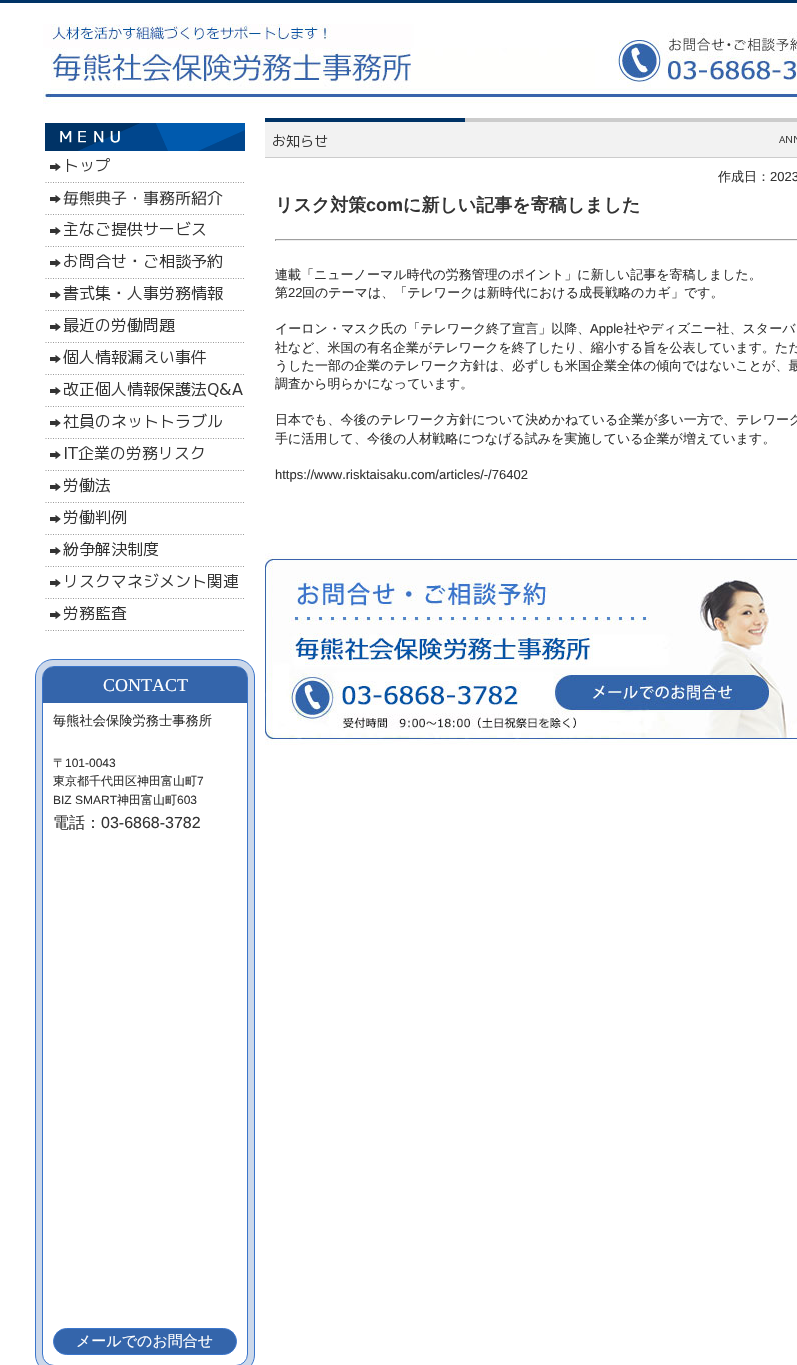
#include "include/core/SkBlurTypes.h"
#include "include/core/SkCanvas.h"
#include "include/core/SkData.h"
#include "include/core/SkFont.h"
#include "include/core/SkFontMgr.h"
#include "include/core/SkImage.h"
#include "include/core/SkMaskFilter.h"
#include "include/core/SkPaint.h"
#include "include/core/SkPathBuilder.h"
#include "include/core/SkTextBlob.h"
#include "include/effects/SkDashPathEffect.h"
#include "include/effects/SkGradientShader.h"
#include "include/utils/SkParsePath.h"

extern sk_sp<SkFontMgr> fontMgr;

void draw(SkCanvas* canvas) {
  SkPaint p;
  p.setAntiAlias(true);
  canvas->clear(SK_ColorWHITE);
  p.setColor(SkColorSetRGB(0, 51, 102));
  canvas->drawRect(SkRect::MakeLTRB(0, 0, 797, 3), p);
  canvas->drawImageRect(SkImages::DeferredFromEncodedData(SkData::MakeFromFileName("images/1.png")), SkRect::MakeLTRB(43, 24, 797, 104), SkSamplingOptions());
  canvas->drawImageRect(SkImages::DeferredFromEncodedData(SkData::MakeFromFileName("images/2.png")), SkRect::MakeLTRB(265, 118, 797, 158), SkSamplingOptions());
  p.setColor(SkColorSetRGB(159, 159, 159));
  canvas->drawRect(SkRect::MakeLTRB(275, 239, 797, 240), p);
  p.setColor(SkColorSetRGB(238, 238, 238));
  canvas->drawRect(SkRect::MakeLTRB(275, 240, 797, 241), p);
  p.setColor(SkColorSetRGB(159, 159, 159));
  canvas->drawRect(SkRect::MakeLTRB(275, 239, 276, 241), p);
  canvas->drawImageRect(SkImages::DeferredFromEncodedData(SkData::MakeFromFileName("images/3.png")), SkRect::MakeLTRB(265, 553, 797, 745), SkSamplingOptions());
  canvas->drawImageRect(SkImages::DeferredFromEncodedData(SkData::MakeFromFileName("images/4.png")), SkRect::MakeLTRB(45, 123, 245, 151), SkSamplingOptions());
  canvas->drawImageRect(SkImages::DeferredFromEncodedData(SkData::MakeFromFileName("images/5.png")), SkRect::MakeLTRB(45, 158, 244, 183), SkSamplingOptions());
  canvas->drawImageRect(SkImages::DeferredFromEncodedData(SkData::MakeFromFileName("images/6.png")), SkRect::MakeLTRB(45, 190, 244, 215), SkSamplingOptions());
  canvas->drawImageRect(SkImages::DeferredFromEncodedData(SkData::MakeFromFileName("images/7.png")), SkRect::MakeLTRB(45, 221, 244, 247), SkSamplingOptions());
  canvas->drawImageRect(SkImages::DeferredFromEncodedData(SkData::MakeFromFileName("images/8.png")), SkRect::MakeLTRB(45, 253, 244, 279), SkSamplingOptions());
  canvas->drawImageRect(SkImages::DeferredFromEncodedData(SkData::MakeFromFileName("images/9.png")), SkRect::MakeLTRB(45, 285, 244, 311), SkSamplingOptions());
  canvas->drawImageRect(SkImages::DeferredFromEncodedData(SkData::MakeFromFileName("images/10.png")), SkRect::MakeLTRB(45, 317, 244, 343), SkSamplingOptions());
  canvas->drawImageRect(SkImages::DeferredFromEncodedData(SkData::MakeFromFileName("images/11.png")), SkRect::MakeLTRB(45, 349, 244, 375), SkSamplingOptions());
  canvas->drawImageRect(SkImages::DeferredFromEncodedData(SkData::MakeFromFileName("images/12.png")), SkRect::MakeLTRB(45, 381, 244, 407), SkSamplingOptions());
  canvas->drawImageRect(SkImages::DeferredFromEncodedData(SkData::MakeFromFileName("images/13.png")), SkRect::MakeLTRB(45, 413, 244, 439), SkSamplingOptions());
  canvas->drawImageRect(SkImages::DeferredFromEncodedData(SkData::MakeFromFileName("images/14.png")), SkRect::MakeLTRB(45, 445, 244, 471), SkSamplingOptions());
  canvas->drawImageRect(SkImages::DeferredFromEncodedData(SkData::MakeFromFileName("images/15.png")), SkRect::MakeLTRB(45, 477, 244, 503), SkSamplingOptions());
  canvas->drawImageRect(SkImages::DeferredFromEncodedData(SkData::MakeFromFileName("images/16.png")), SkRect::MakeLTRB(45, 509, 244, 535), SkSamplingOptions());
  canvas->drawImageRect(SkImages::DeferredFromEncodedData(SkData::MakeFromFileName("images/17.png")), SkRect::MakeLTRB(45, 541, 244, 567), SkSamplingOptions());
  canvas->drawImageRect(SkImages::DeferredFromEncodedData(SkData::MakeFromFileName("images/18.png")), SkRect::MakeLTRB(45, 573, 244, 599), SkSamplingOptions());
  canvas->drawImageRect(SkImages::DeferredFromEncodedData(SkData::MakeFromFileName("images/19.png")), SkRect::MakeLTRB(45, 606, 244, 631), SkSamplingOptions());
  p.setColor(SkColorSetRGB(204, 216, 234));
  canvas->drawRoundRect(SkRect::MakeLTRB(35.5f, 659.5f, 254.5f, 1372.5f), 17.5f, 17.5f, p);
  p.setStyle(SkPaint::kStroke_Style);
  p.setStrokeWidth(1);
  p.setColor(SkColorSetRGB(58, 117, 203));
  canvas->drawRoundRect(SkRect::MakeLTRB(35.5f, 659.5f, 254.5f, 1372.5f), 17.5f, 17.5f, p);
  p.setStyle(SkPaint::kFill_Style);
  p.setColor(SK_ColorWHITE);
  canvas->drawRoundRect(SkRect::MakeLTRB(42.5f, 666.5f, 247.5f, 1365.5f), 11.5f, 11.5f, p);
  p.setStyle(SkPaint::kStroke_Style);
  p.setColor(SkColorSetRGB(58, 117, 203));
  canvas->drawRoundRect(SkRect::MakeLTRB(42.5f, 666.5f, 247.5f, 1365.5f), 11.5f, 11.5f, p);
  p.setStyle(SkPaint::kFill_Style);
  p.setColor(SkColorSetRGB(52, 101, 171));
  canvas->drawPath(SkPathBuilder().moveTo(53, 667).lineTo(237, 667).cubicTo(242.5f, 667, 247, 671.5f, 247, 677).lineTo(247, 703).lineTo(43, 703).lineTo(43, 677).cubicTo(43, 671.5f, 47.5f, 667, 53, 667).close().detach(), p);
  canvas->drawRoundRect(SkRect::MakeLTRB(53.5f, 1328.5f, 236.5f, 1354.5f), 13, 13, p);
  p.setStyle(SkPaint::kStroke_Style);
  p.setColor(SkColorSetRGB(58, 117, 203));
  canvas->drawRoundRect(SkRect::MakeLTRB(53.5f, 1328.5f, 236.5f, 1354.5f), 13, 13, p);
  SkFont font1(fontMgr->matchFamilyStyle("WenQuanYi Zen Hei", SkFontStyle(500, SkFontStyle::kNormal_Width, SkFontStyle::kUpright_Slant)), 13);
  font1.setSubpixel(true);
  p.setStyle(SkPaint::kFill_Style);
  p.setColor(SkColorSetRGB(51, 51, 51));
  canvas->drawString("作成日：", 718, 181, font1, p);
  SkFont font2(fontMgr->matchFamilyStyle("Liberation Sans", SkFontStyle::Normal()), 13);
  font2.setSubpixel(true);
  canvas->drawString("2023", 770, 181, font2, p);
  SkFont font3(fontMgr->matchFamilyStyle("WenQuanYi Zen Hei", SkFontStyle::Bold()), 18);
  font3.setSubpixel(true);
  canvas->drawString("リスク対策", 275, 211, font3, p);
  SkFont font4(fontMgr->matchFamilyStyle("Liberation Sans", SkFontStyle::Bold()), 18);
  font4.setSubpixel(true);
  canvas->drawString("com", 366, 211, font4, p);
  canvas->drawString("に新しい記事を寄稿しました", 403, 211, font3, p);
  canvas->drawString("連載「ニューノーマル時代の労務管理のポイント」に新しい記事を寄稿しました。", 275, 279, font1, p);
  canvas->drawString("第", 275, 297, font1, p);
  canvas->drawString("22", 288, 297, font2, p);
  canvas->drawString("回のテーマは、「テレワークは新時代における成長戦略のカギ」です。", 302, 297, font1, p);
  canvas->drawString("イーロン・マスク氏の「テレワーク終了宣言」以降、", 275, 333, font1, p);
  canvas->drawString("Apple", 590, 333, font2, p);
  canvas->drawString("社やディズニー社、スターバ", 624, 333, font1, p);
  canvas->drawString("社など、米国の有名企業がテレワークを終了したり、縮小する旨を公表しています。ただ", 275, 352, font1, p);
  canvas->drawString("うした一部の企業のテレワーク方針は、必ずしも米国企業全体の傾向ではないことが、最", 275, 370, font1, p);
  canvas->drawString("調査から明らかになっています。", 275, 388, font1, p);
  canvas->drawString("日本でも、今後のテレワーク方針について決めかねている企業が多い一方で、テレワーク", 275, 424, font1, p);
  canvas->drawString("手に活用して、今後の人材戦略につなげる試みを実施している企業が増えています。", 275, 443, font1, p);
  canvas->drawString("https://www.risktaisaku.com/articles/-/76402", 275, 479, font2, p);
  SkFont font5(fontMgr->matchFamilyStyle("Liberation Serif", SkFontStyle::Normal()), 18);
  font5.setSubpixel(true);
  p.setColor(SK_ColorWHITE);
  canvas->drawString("CONTACT", 103, 691, font5, p);
  SkFont font6(fontMgr->matchFamilyStyle("WenQuanYi Zen Hei", SkFontStyle(500, SkFontStyle::kNormal_Width, SkFontStyle::kUpright_Slant)), 13.25f);
  font6.setSubpixel(true);
  p.setColor(SkColorSetRGB(51, 51, 51));
  canvas->drawString("毎熊社会保険労務士事務所", 53, 725, font6, p);
  SkFont font7(fontMgr->matchFamilyStyle("WenQuanYi Zen Hei", SkFontStyle(500, SkFontStyle::kNormal_Width, SkFontStyle::kUpright_Slant)), 12);
  font7.setSubpixel(true);
  canvas->drawString("〒", 53, 767, font7, p);
  SkFont font8(fontMgr->matchFamilyStyle("Liberation Sans", SkFontStyle::Normal()), 12);
  font8.setSubpixel(true);
  canvas->drawString("101-0043", 65, 767, font8, p);
  canvas->drawString("東京都千代田区神田富山町", 53, 785, font7, p);
  canvas->drawString("7", 197, 785, font8, p);
  canvas->drawString("BIZ SMART", 53, 804, font8, p);
  canvas->drawString("神田富山町", 117, 804, font7, p);
  canvas->drawString("603", 177, 804, font8, p);
  SkFont font9(fontMgr->matchFamilyStyle("WenQuanYi Zen Hei", SkFontStyle(500, SkFontStyle::kNormal_Width, SkFontStyle::kUpright_Slant)), 16);
  font9.setSubpixel(true);
  canvas->drawString("電話：", 53, 828, font9, p);
  SkFont font10(fontMgr->matchFamilyStyle("Liberation Sans", SkFontStyle::Normal()), 16);
  font10.setSubpixel(true);
  canvas->drawString("03-6868-3782", 101, 828, font10, p);
  SkFont font11(fontMgr->matchFamilyStyle("WenQuanYi Zen Hei", SkFontStyle(500, SkFontStyle::kNormal_Width, SkFontStyle::kUpright_Slant)), 15);
  font11.setSubpixel(true);
  p.setColor(SK_ColorWHITE);
  canvas->drawString("メールでのお問合せ", 76, 1346, font11, p);
}
